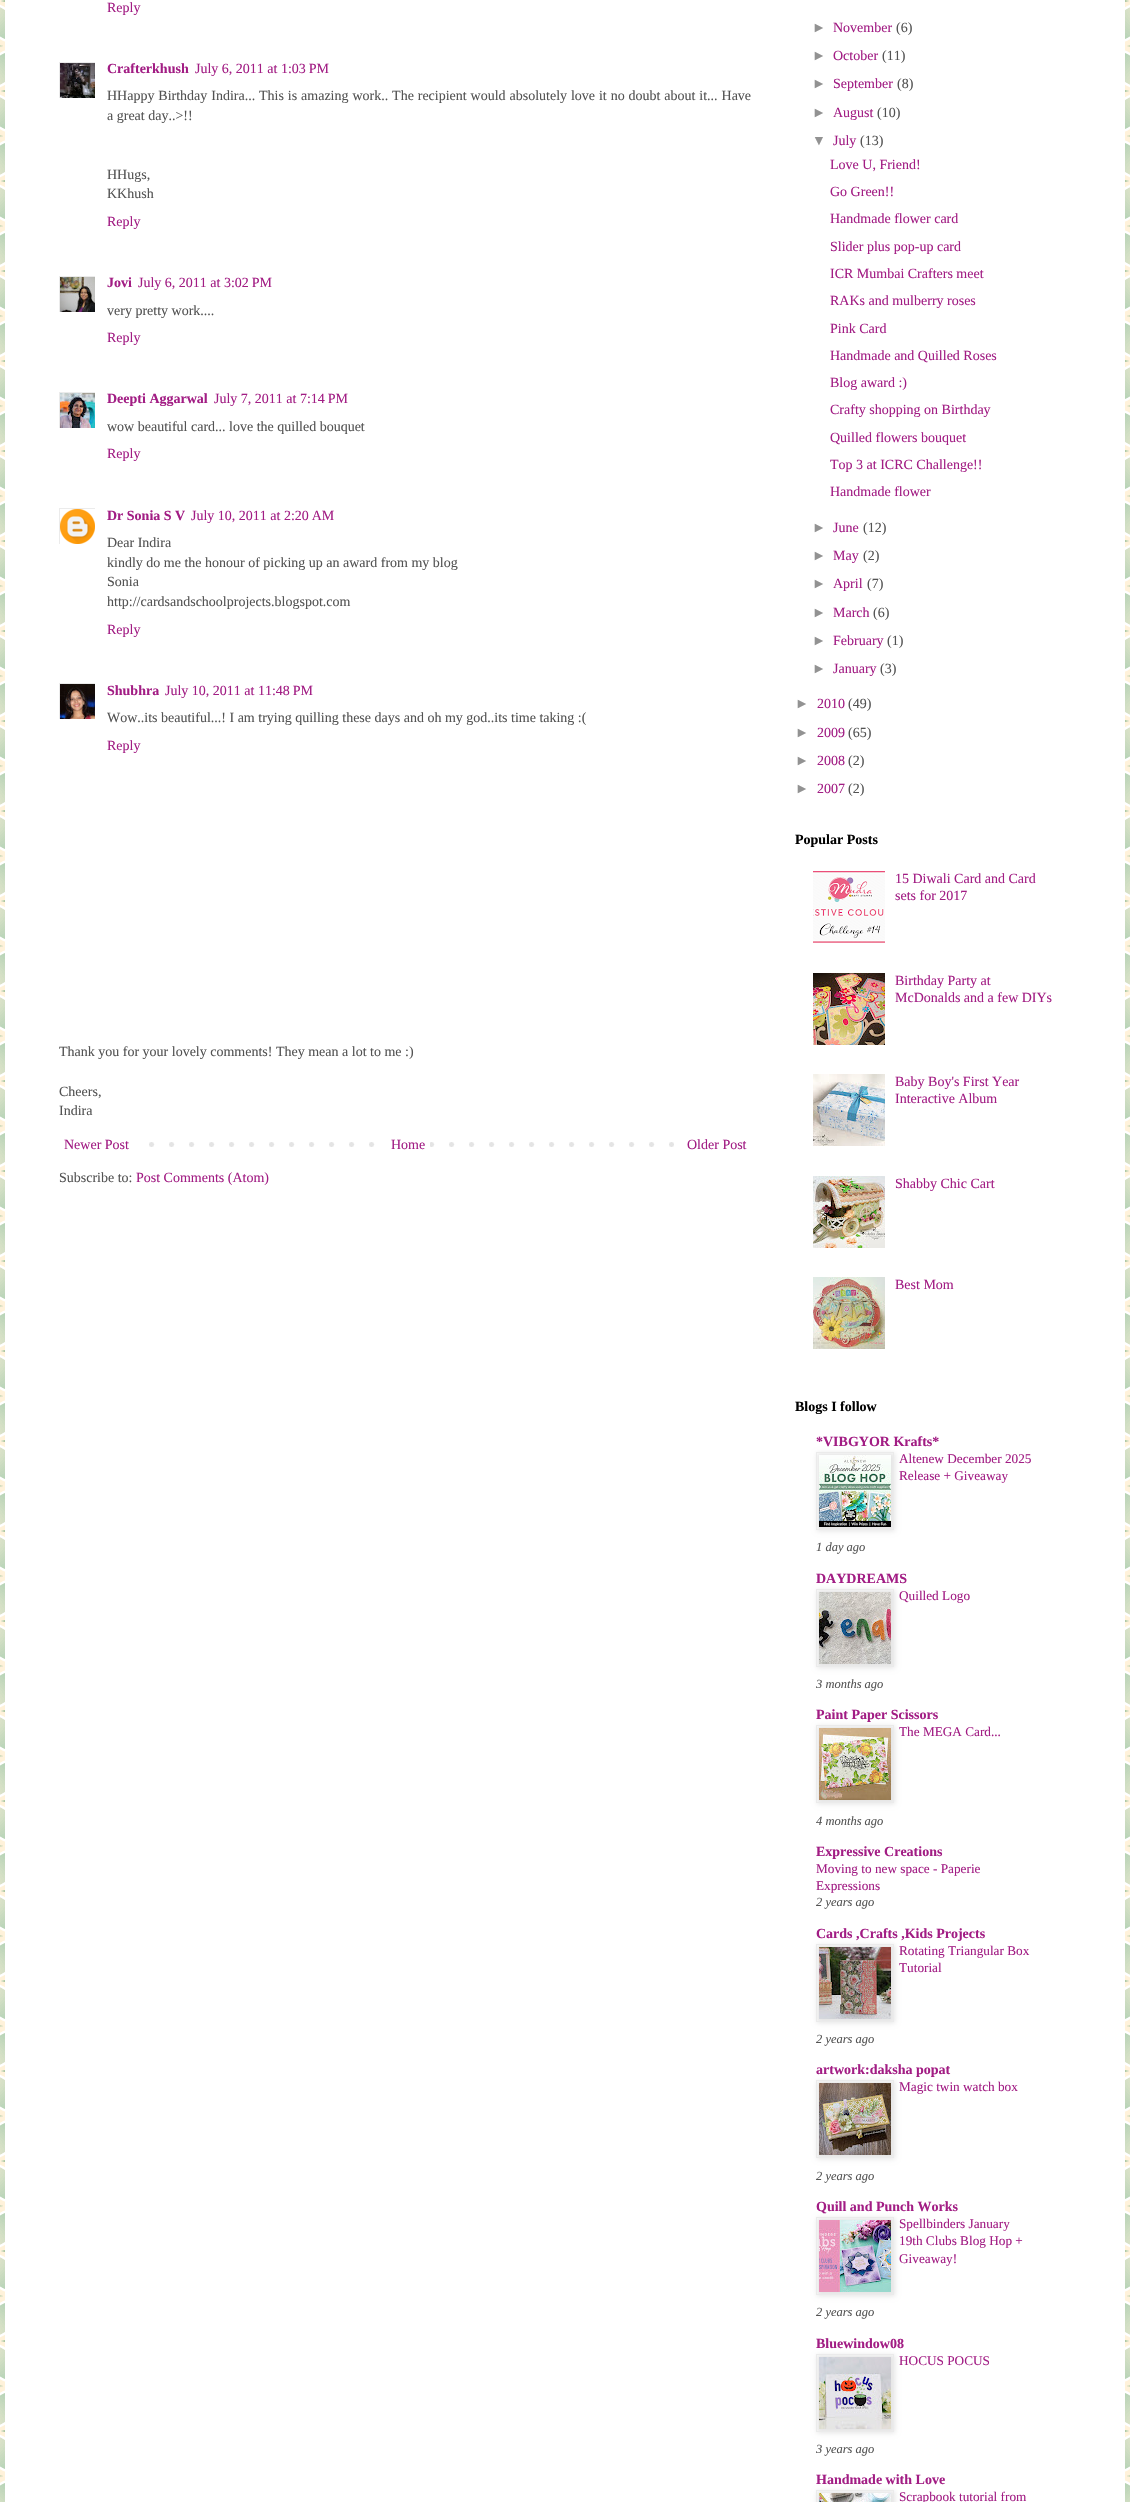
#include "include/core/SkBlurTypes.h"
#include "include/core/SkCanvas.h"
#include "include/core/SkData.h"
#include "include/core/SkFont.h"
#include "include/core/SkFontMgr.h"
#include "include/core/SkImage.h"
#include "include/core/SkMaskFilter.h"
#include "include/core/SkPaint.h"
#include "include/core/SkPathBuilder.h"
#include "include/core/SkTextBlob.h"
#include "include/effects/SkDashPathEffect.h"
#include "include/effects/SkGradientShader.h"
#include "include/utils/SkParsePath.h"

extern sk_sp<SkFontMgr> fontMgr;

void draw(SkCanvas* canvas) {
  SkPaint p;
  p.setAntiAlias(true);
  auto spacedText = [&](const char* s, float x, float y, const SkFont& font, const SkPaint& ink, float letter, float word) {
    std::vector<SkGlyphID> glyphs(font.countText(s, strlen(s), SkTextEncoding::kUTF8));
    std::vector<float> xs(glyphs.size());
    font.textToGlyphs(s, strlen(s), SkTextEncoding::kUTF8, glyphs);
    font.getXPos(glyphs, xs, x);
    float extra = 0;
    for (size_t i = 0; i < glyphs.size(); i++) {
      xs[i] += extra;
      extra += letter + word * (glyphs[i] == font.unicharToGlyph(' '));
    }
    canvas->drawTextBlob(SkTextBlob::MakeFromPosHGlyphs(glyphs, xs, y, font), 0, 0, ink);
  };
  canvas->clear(SK_ColorWHITE);
  canvas->drawImageRect(SkImages::DeferredFromEncodedData(SkData::MakeFromFileName("images/1.png")), SkRect::MakeLTRB(0, 0, 1130, 2502), SkSamplingOptions());
  p.setColor(SK_ColorWHITE);
  canvas->drawRect(SkRect::MakeLTRB(5, 0, 1125, 2502), p);
  canvas->save();
  canvas->clipRect(SkRect::MakeLTRB(59, 62, 95, 98));
  p.setStyle(SkPaint::kStroke_Style);
  p.setStrokeWidth(1);
  p.setColor(SkColorSetRGB(235, 235, 235));
  canvas->drawRect(SkRect::MakeLTRB(59.5f, 62.5f, 96.5f, 99.5f), p);
  canvas->restore();
  canvas->drawImageRect(SkImages::DeferredFromEncodedData(SkData::MakeFromFileName("images/2.png")), SkRect::MakeLTRB(60, 63, 95, 98), SkSamplingOptions());
  canvas->save();
  canvas->clipRect(SkRect::MakeLTRB(59, 276, 95, 312));
  canvas->drawRect(SkRect::MakeLTRB(59.5f, 276.5f, 96.5f, 313.5f), p);
  canvas->restore();
  canvas->drawImageRect(SkImages::DeferredFromEncodedData(SkData::MakeFromFileName("images/3.png")), SkRect::MakeLTRB(60, 277, 95, 312), SkSamplingOptions());
  canvas->save();
  canvas->clipRect(SkRect::MakeLTRB(59, 392, 95, 428));
  canvas->drawRect(SkRect::MakeLTRB(59.5f, 392.5f, 95.5f, 428.5f), p);
  canvas->restore();
  canvas->drawImageRect(SkImages::DeferredFromEncodedData(SkData::MakeFromFileName("images/4.png")), SkRect::MakeLTRB(60, 393, 95, 428), SkSamplingOptions());
  canvas->save();
  canvas->clipRect(SkRect::MakeLTRB(59, 508, 95, 544));
  canvas->drawRect(SkRect::MakeLTRB(59.5f, 508.5f, 95.5f, 544.5f), p);
  canvas->restore();
  canvas->drawImageRect(SkImages::DeferredFromEncodedData(SkData::MakeFromFileName("images/5.png")), SkRect::MakeLTRB(60, 509, 95, 544), SkSamplingOptions());
  canvas->save();
  canvas->clipRect(SkRect::MakeLTRB(59, 683, 95, 719));
  canvas->drawRect(SkRect::MakeLTRB(59.5f, 683.5f, 96.5f, 720.5f), p);
  canvas->restore();
  canvas->drawImageRect(SkImages::DeferredFromEncodedData(SkData::MakeFromFileName("images/6.png")), SkRect::MakeLTRB(60, 684, 95, 719), SkSamplingOptions());
  canvas->drawImageRect(SkImages::DeferredFromEncodedData(SkData::MakeFromFileName("images/7.png")), SkRect::MakeLTRB(149, 1142, 674, 1147), SkSamplingOptions());
  p.setStyle(SkPaint::kFill_Style);
  p.setColor(SK_ColorWHITE);
  canvas->drawRect(SkRect::MakeLTRB(389, 1142, 430, 1147), p);
  canvas->drawImageRect(SkImages::DeferredFromEncodedData(SkData::MakeFromFileName("images/8.png")), SkRect::MakeLTRB(813, 871, 885, 943), SkSamplingOptions());
  canvas->drawImageRect(SkImages::DeferredFromEncodedData(SkData::MakeFromFileName("images/9.png")), SkRect::MakeLTRB(813, 973, 885, 1045), SkSamplingOptions());
  canvas->drawImageRect(SkImages::DeferredFromEncodedData(SkData::MakeFromFileName("images/10.png")), SkRect::MakeLTRB(813, 1074, 885, 1146), SkSamplingOptions());
  canvas->drawImageRect(SkImages::DeferredFromEncodedData(SkData::MakeFromFileName("images/11.png")), SkRect::MakeLTRB(813, 1176, 885, 1248), SkSamplingOptions());
  canvas->drawImageRect(SkImages::DeferredFromEncodedData(SkData::MakeFromFileName("images/12.png")), SkRect::MakeLTRB(813, 1277, 885, 1349), SkSamplingOptions());
  p.setColor(SkColorSetARGB(26, 0, 0, 0));
  p.setMaskFilter(SkMaskFilter::MakeBlur(kNormal_SkBlurStyle, 2.5f));
  canvas->drawRect(SkRect::MakeLTRB(817, 1453, 895, 1531), p);
  p.setMaskFilter(nullptr);
  p.setStyle(SkPaint::kStroke_Style);
  p.setColor(SkColorSetRGB(235, 235, 235));
  canvas->drawRect(SkRect::MakeLTRB(816.5f, 1452.5f, 893.5f, 1529.5f), p);
  canvas->drawImageRect(SkImages::DeferredFromEncodedData(SkData::MakeFromFileName("images/13.png")), SkRect::MakeLTRB(819, 1455, 891, 1527), SkSamplingOptions());
  p.setStyle(SkPaint::kFill_Style);
  p.setColor(SkColorSetARGB(26, 0, 0, 0));
  p.setMaskFilter(SkMaskFilter::MakeBlur(kNormal_SkBlurStyle, 2.5f));
  canvas->drawRect(SkRect::MakeLTRB(817, 1590, 895, 1668), p);
  p.setMaskFilter(nullptr);
  p.setStyle(SkPaint::kStroke_Style);
  p.setColor(SkColorSetRGB(235, 235, 235));
  canvas->drawRect(SkRect::MakeLTRB(816.5f, 1589.5f, 893.5f, 1666.5f), p);
  canvas->drawImageRect(SkImages::DeferredFromEncodedData(SkData::MakeFromFileName("images/14.png")), SkRect::MakeLTRB(819, 1592, 891, 1664), SkSamplingOptions());
  p.setStyle(SkPaint::kFill_Style);
  p.setColor(SkColorSetARGB(26, 0, 0, 0));
  p.setMaskFilter(SkMaskFilter::MakeBlur(kNormal_SkBlurStyle, 2.5f));
  canvas->drawRect(SkRect::MakeLTRB(817, 1726, 895, 1804), p);
  p.setMaskFilter(nullptr);
  p.setStyle(SkPaint::kStroke_Style);
  p.setColor(SkColorSetRGB(235, 235, 235));
  canvas->drawRect(SkRect::MakeLTRB(816.5f, 1725.5f, 893.5f, 1802.5f), p);
  canvas->drawImageRect(SkImages::DeferredFromEncodedData(SkData::MakeFromFileName("images/15.png")), SkRect::MakeLTRB(819, 1728, 891, 1800), SkSamplingOptions());
  p.setStyle(SkPaint::kFill_Style);
  p.setColor(SkColorSetARGB(26, 0, 0, 0));
  p.setMaskFilter(SkMaskFilter::MakeBlur(kNormal_SkBlurStyle, 2.5f));
  canvas->drawRect(SkRect::MakeLTRB(817, 1945, 895, 2023), p);
  p.setMaskFilter(nullptr);
  p.setStyle(SkPaint::kStroke_Style);
  p.setColor(SkColorSetRGB(235, 235, 235));
  canvas->drawRect(SkRect::MakeLTRB(816.5f, 1944.5f, 893.5f, 2021.5f), p);
  canvas->drawImageRect(SkImages::DeferredFromEncodedData(SkData::MakeFromFileName("images/16.png")), SkRect::MakeLTRB(819, 1947, 891, 2019), SkSamplingOptions());
  p.setStyle(SkPaint::kFill_Style);
  p.setColor(SkColorSetARGB(26, 0, 0, 0));
  p.setMaskFilter(SkMaskFilter::MakeBlur(kNormal_SkBlurStyle, 2.5f));
  canvas->drawRect(SkRect::MakeLTRB(817, 2081, 895, 2159), p);
  p.setMaskFilter(nullptr);
  p.setStyle(SkPaint::kStroke_Style);
  p.setColor(SkColorSetRGB(235, 235, 235));
  canvas->drawRect(SkRect::MakeLTRB(816.5f, 2080.5f, 893.5f, 2157.5f), p);
  canvas->drawImageRect(SkImages::DeferredFromEncodedData(SkData::MakeFromFileName("images/17.png")), SkRect::MakeLTRB(819, 2083, 891, 2155), SkSamplingOptions());
  p.setStyle(SkPaint::kFill_Style);
  p.setColor(SkColorSetARGB(26, 0, 0, 0));
  p.setMaskFilter(SkMaskFilter::MakeBlur(kNormal_SkBlurStyle, 2.5f));
  canvas->drawRect(SkRect::MakeLTRB(817, 2218, 895, 2296), p);
  p.setMaskFilter(nullptr);
  p.setStyle(SkPaint::kStroke_Style);
  p.setColor(SkColorSetRGB(235, 235, 235));
  canvas->drawRect(SkRect::MakeLTRB(816.5f, 2217.5f, 893.5f, 2294.5f), p);
  canvas->drawImageRect(SkImages::DeferredFromEncodedData(SkData::MakeFromFileName("images/18.png")), SkRect::MakeLTRB(819, 2220, 891, 2292), SkSamplingOptions());
  p.setStyle(SkPaint::kFill_Style);
  p.setColor(SkColorSetARGB(26, 0, 0, 0));
  p.setMaskFilter(SkMaskFilter::MakeBlur(kNormal_SkBlurStyle, 2.5f));
  canvas->drawRect(SkRect::MakeLTRB(817, 2355, 895, 2433), p);
  p.setMaskFilter(nullptr);
  p.setStyle(SkPaint::kStroke_Style);
  p.setColor(SkColorSetRGB(235, 235, 235));
  canvas->drawRect(SkRect::MakeLTRB(816.5f, 2354.5f, 893.5f, 2431.5f), p);
  canvas->drawImageRect(SkImages::DeferredFromEncodedData(SkData::MakeFromFileName("images/19.png")), SkRect::MakeLTRB(819, 2357, 891, 2429), SkSamplingOptions());
  p.setStyle(SkPaint::kFill_Style);
  p.setColor(SkColorSetARGB(26, 0, 0, 0));
  p.setMaskFilter(SkMaskFilter::MakeBlur(kNormal_SkBlurStyle, 2.5f));
  canvas->drawRect(SkRect::MakeLTRB(817, 2491, 895, 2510), p);
  p.setMaskFilter(nullptr);
  p.setStyle(SkPaint::kStroke_Style);
  p.setColor(SkColorSetRGB(235, 235, 235));
  canvas->drawRect(SkRect::MakeLTRB(816.5f, 2490.5f, 893.5f, 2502.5f), p);
  canvas->drawImageRect(SkImages::DeferredFromEncodedData(SkData::MakeFromFileName("images/20.png")), SkRect::MakeLTRB(819, 2493, 891, 2502), SkSamplingOptions());
  SkFont font1(fontMgr->matchFamilyStyle("Liberation Serif", SkFontStyle::Normal()), 14);
  font1.setSubpixel(true);
  p.setStyle(SkPaint::kFill_Style);
  p.setColor(SkColorSetRGB(162, 29, 132));
  canvas->drawString("Reply", 107, 12, font1, p);
  SkFont font2(fontMgr->matchFamilyStyle("Liberation Serif", SkFontStyle::Bold()), 14);
  font2.setSubpixel(true);
  canvas->drawString("Crafterkhush", 107, 73, font2, p);
  canvas->drawString("July 6, 2011 at 1:03 PM", 195, 73, font1, p);
  p.setColor(SkColorSetRGB(83, 83, 83));
  spacedText("HHappy Birthday Indira... This is amazing work.. The recipient would absolutely love it no doubt about it... Have", 107, 100, font1, p, 0, 0.4f);
  canvas->drawString("a great day..>!!", 107, 120, font1, p);
  canvas->drawString("HHugs,", 107, 179, font1, p);
  canvas->drawString("KKhush", 107, 198, font1, p);
  p.setColor(SkColorSetRGB(162, 29, 132));
  canvas->drawString("Reply", 107, 226, font1, p);
  canvas->drawString("Jovi", 107, 287, font2, p);
  canvas->drawString("July 6, 2011 at 3:02 PM", 138, 287, font1, p);
  p.setColor(SkColorSetRGB(83, 83, 83));
  canvas->drawString("very pretty work....", 107, 315, font1, p);
  p.setColor(SkColorSetRGB(162, 29, 132));
  canvas->drawString("Reply", 107, 342, font1, p);
  canvas->drawString("Deepti Aggarwal", 107, 403, font2, p);
  canvas->drawString("July 7, 2011 at 7:14 PM", 214, 403, font1, p);
  p.setColor(SkColorSetRGB(83, 83, 83));
  canvas->drawString("wow beautiful card... love the quilled bouquet", 107, 431, font1, p);
  p.setColor(SkColorSetRGB(162, 29, 132));
  canvas->drawString("Reply", 107, 458, font1, p);
  canvas->drawString("Dr Sonia S V", 107, 520, font2, p);
  canvas->drawString("July 10, 2011 at 2:20 AM", 191, 520, font1, p);
  p.setColor(SkColorSetRGB(83, 83, 83));
  canvas->drawString("Dear Indira", 107, 547, font1, p);
  canvas->drawString("kindly do me the honour of picking up an award from my blog", 107, 567, font1, p);
  canvas->drawString("Sonia", 107, 586, font1, p);
  canvas->drawString("http://cardsandschoolprojects.blogspot.com", 107, 606, font1, p);
  p.setColor(SkColorSetRGB(162, 29, 132));
  canvas->drawString("Reply", 107, 634, font1, p);
  canvas->drawString("Shubhra", 107, 695, font2, p);
  canvas->drawString("July 10, 2011 at 11:48 PM", 165, 695, font1, p);
  p.setColor(SkColorSetRGB(83, 83, 83));
  canvas->drawString("Wow..its beautiful...! I am trying quilling these days and oh my god..its time taking :(", 107, 722, font1, p);
  p.setColor(SkColorSetRGB(162, 29, 132));
  canvas->drawString("Reply", 107, 750, font1, p);
  p.setColor(SkColorSetRGB(83, 83, 83));
  canvas->drawString("Thank you for your lovely comments! They mean a lot to me :)", 59, 1056, font1, p);
  canvas->drawString("Cheers,", 59, 1096, font1, p);
  canvas->drawString("Indira", 59, 1115, font1, p);
  p.setColor(SkColorSetRGB(162, 29, 132));
  canvas->drawString("Newer Post", 64, 1149, font1, p);
  canvas->drawString("Home", 391, 1149, font1, p);
  canvas->drawString("Older Post", 687, 1149, font1, p);
  p.setColor(SkColorSetRGB(83, 83, 83));
  canvas->drawString("Subscribe to:", 59, 1182, font1, p);
  p.setColor(SkColorSetRGB(162, 29, 132));
  canvas->drawString("Post Comments (Atom)", 136, 1182, font1, p);
  SkFont font3(fontMgr->matchFamilyStyle("Liberation Sans", SkFontStyle::Normal()), 14);
  font3.setSubpixel(true);
  p.setColor(SkColorSetRGB(146, 146, 146));
  canvas->drawString("►", 812, 32, font3, p);
  p.setColor(SkColorSetRGB(162, 29, 132));
  canvas->drawString("November", 833, 32, font1, p);
  p.setColor(SkColorSetRGB(83, 83, 83));
  canvas->drawString("(6)", 896, 32, font1, p);
  p.setColor(SkColorSetRGB(146, 146, 146));
  canvas->drawString("►", 812, 60, font3, p);
  p.setColor(SkColorSetRGB(162, 29, 132));
  canvas->drawString("October", 833, 60, font1, p);
  p.setColor(SkColorSetRGB(83, 83, 83));
  canvas->drawString("(11)", 882, 60, font1, p);
  p.setColor(SkColorSetRGB(146, 146, 146));
  canvas->drawString("►", 812, 88, font3, p);
  p.setColor(SkColorSetRGB(162, 29, 132));
  canvas->drawString("September", 833, 88, font1, p);
  p.setColor(SkColorSetRGB(83, 83, 83));
  canvas->drawString("(8)", 897, 88, font1, p);
  p.setColor(SkColorSetRGB(146, 146, 146));
  canvas->drawString("►", 812, 117, font3, p);
  p.setColor(SkColorSetRGB(162, 29, 132));
  canvas->drawString("August", 833, 117, font1, p);
  p.setColor(SkColorSetRGB(83, 83, 83));
  canvas->drawString("(10)", 877, 117, font1, p);
  p.setColor(SkColorSetRGB(146, 146, 146));
  canvas->drawString("▼", 812, 145, font3, p);
  p.setColor(SkColorSetRGB(162, 29, 132));
  canvas->drawString("July", 833, 145, font1, p);
  p.setColor(SkColorSetRGB(83, 83, 83));
  canvas->drawString("(13)", 860, 145, font1, p);
  p.setColor(SkColorSetRGB(162, 29, 132));
  canvas->drawString("Love U, Friend!", 830, 169, font1, p);
  canvas->drawString("Go Green!!", 830, 196, font1, p);
  canvas->drawString("Handmade flower card", 830, 223, font1, p);
  canvas->drawString("Slider plus pop-up card", 830, 251, font1, p);
  canvas->drawString("ICR Mumbai Crafters meet", 830, 278, font1, p);
  canvas->drawString("RAKs and mulberry roses", 830, 305, font1, p);
  canvas->drawString("Pink Card", 830, 333, font1, p);
  canvas->drawString("Handmade and Quilled Roses", 830, 360, font1, p);
  canvas->drawString("Blog award :)", 830, 387, font1, p);
  canvas->drawString("Crafty shopping on Birthday", 830, 414, font1, p);
  canvas->drawString("Quilled flowers bouquet", 830, 442, font1, p);
  canvas->drawString("Top 3 at ICRC Challenge!!", 830, 469, font1, p);
  canvas->drawString("Handmade flower", 830, 496, font1, p);
  p.setColor(SkColorSetRGB(146, 146, 146));
  canvas->drawString("►", 812, 532, font3, p);
  p.setColor(SkColorSetRGB(162, 29, 132));
  canvas->drawString("June", 833, 532, font1, p);
  p.setColor(SkColorSetRGB(83, 83, 83));
  canvas->drawString("(12)", 863, 532, font1, p);
  p.setColor(SkColorSetRGB(146, 146, 146));
  canvas->drawString("►", 812, 560, font3, p);
  p.setColor(SkColorSetRGB(162, 29, 132));
  canvas->drawString("May", 833, 560, font1, p);
  p.setColor(SkColorSetRGB(83, 83, 83));
  canvas->drawString("(2)", 863, 560, font1, p);
  p.setColor(SkColorSetRGB(146, 146, 146));
  canvas->drawString("►", 812, 588, font3, p);
  p.setColor(SkColorSetRGB(162, 29, 132));
  canvas->drawString("April", 833, 588, font1, p);
  p.setColor(SkColorSetRGB(83, 83, 83));
  canvas->drawString("(7)", 867, 588, font1, p);
  p.setColor(SkColorSetRGB(146, 146, 146));
  canvas->drawString("►", 812, 617, font3, p);
  p.setColor(SkColorSetRGB(162, 29, 132));
  canvas->drawString("March", 833, 617, font1, p);
  p.setColor(SkColorSetRGB(83, 83, 83));
  canvas->drawString("(6)", 873, 617, font1, p);
  p.setColor(SkColorSetRGB(146, 146, 146));
  canvas->drawString("►", 812, 645, font3, p);
  p.setColor(SkColorSetRGB(162, 29, 132));
  canvas->drawString("February", 833, 645, font1, p);
  p.setColor(SkColorSetRGB(83, 83, 83));
  canvas->drawString("(1)", 887, 645, font1, p);
  p.setColor(SkColorSetRGB(146, 146, 146));
  canvas->drawString("►", 812, 673, font3, p);
  p.setColor(SkColorSetRGB(162, 29, 132));
  canvas->drawString("January", 833, 673, font1, p);
  p.setColor(SkColorSetRGB(83, 83, 83));
  canvas->drawString("(3)", 880, 673, font1, p);
  p.setColor(SkColorSetRGB(146, 146, 146));
  canvas->drawString("►", 795, 708, font3, p);
  p.setColor(SkColorSetRGB(162, 29, 132));
  canvas->drawString("2010", 817, 708, font1, p);
  p.setColor(SkColorSetRGB(83, 83, 83));
  canvas->drawString("(49)", 848, 708, font1, p);
  p.setColor(SkColorSetRGB(146, 146, 146));
  canvas->drawString("►", 795, 737, font3, p);
  p.setColor(SkColorSetRGB(162, 29, 132));
  canvas->drawString("2009", 817, 737, font1, p);
  p.setColor(SkColorSetRGB(83, 83, 83));
  canvas->drawString("(65)", 848, 737, font1, p);
  p.setColor(SkColorSetRGB(146, 146, 146));
  canvas->drawString("►", 795, 765, font3, p);
  p.setColor(SkColorSetRGB(162, 29, 132));
  canvas->drawString("2008", 817, 765, font1, p);
  p.setColor(SkColorSetRGB(83, 83, 83));
  canvas->drawString("(2)", 848, 765, font1, p);
  p.setColor(SkColorSetRGB(146, 146, 146));
  canvas->drawString("►", 795, 793, font3, p);
  p.setColor(SkColorSetRGB(162, 29, 132));
  canvas->drawString("2007", 817, 793, font1, p);
  p.setColor(SkColorSetRGB(83, 83, 83));
  canvas->drawString("(2)", 848, 793, font1, p);
  p.setColor(SK_ColorBLACK);
  canvas->drawString("Popular Posts", 795, 844, font2, p);
  p.setColor(SkColorSetRGB(162, 29, 132));
  canvas->drawString("15 Diwali Card and Card", 895, 883, font1, p);
  canvas->drawString("sets for 2017", 895, 900, font1, p);
  canvas->drawString("Birthday Party at", 895, 985, font1, p);
  canvas->drawString("McDonalds and a few DIYs", 895, 1002, font1, p);
  canvas->drawString("Baby Boy's First Year", 895, 1086, font1, p);
  canvas->drawString("Interactive Album", 895, 1103, font1, p);
  canvas->drawString("Shabby Chic Cart", 895, 1188, font1, p);
  canvas->drawString("Best Mom", 895, 1289, font1, p);
  p.setColor(SK_ColorBLACK);
  canvas->drawString("Blogs I follow", 795, 1411, font2, p);
  p.setColor(SkColorSetRGB(162, 29, 132));
  canvas->drawString("*VIBGYOR Krafts*", 816, 1446, font2, p);
  SkFont font4(fontMgr->matchFamilyStyle("Liberation Serif", SkFontStyle::Normal()), 13.25f);
  font4.setSubpixel(true);
  canvas->drawString("Altenew December 2025", 899, 1463, font4, p);
  canvas->drawString("Release + Giveaway", 899, 1480, font4, p);
  SkFont font5(fontMgr->matchFamilyStyle("Liberation Serif", SkFontStyle::Italic()), 12.5f);
  font5.setSubpixel(true);
  p.setColor(SkColorSetRGB(83, 83, 83));
  canvas->drawString("1 day ago", 816, 1551, font5, p);
  p.setColor(SkColorSetRGB(162, 29, 132));
  canvas->drawString("DAYDREAMS", 816, 1583, font2, p);
  canvas->drawString("Quilled Logo", 899, 1600, font4, p);
  p.setColor(SkColorSetRGB(83, 83, 83));
  canvas->drawString("3 months ago", 816, 1688, font5, p);
  p.setColor(SkColorSetRGB(162, 29, 132));
  canvas->drawString("Paint Paper Scissors", 816, 1719, font2, p);
  canvas->drawString("The MEGA Card...", 899, 1736, font4, p);
  p.setColor(SkColorSetRGB(83, 83, 83));
  canvas->drawString("4 months ago", 816, 1825, font5, p);
  p.setColor(SkColorSetRGB(162, 29, 132));
  canvas->drawString("Expressive Creations", 816, 1856, font2, p);
  canvas->drawString("Moving to new space - Paperie", 816, 1873, font4, p);
  canvas->drawString("Expressions", 816, 1890, font4, p);
  p.setColor(SkColorSetRGB(83, 83, 83));
  canvas->drawString("2 years ago", 816, 1906, font5, p);
  p.setColor(SkColorSetRGB(162, 29, 132));
  canvas->drawString("Cards ,Crafts ,Kids Projects", 816, 1938, font2, p);
  canvas->drawString("Rotating Triangular Box", 899, 1955, font4, p);
  canvas->drawString("Tutorial", 899, 1972, font4, p);
  p.setColor(SkColorSetRGB(83, 83, 83));
  canvas->drawString("2 years ago", 816, 2043, font5, p);
  p.setColor(SkColorSetRGB(162, 29, 132));
  canvas->drawString("artwork:daksha popat", 816, 2074, font2, p);
  canvas->drawString("Magic twin watch box", 899, 2091, font4, p);
  p.setColor(SkColorSetRGB(83, 83, 83));
  canvas->drawString("2 years ago", 816, 2180, font5, p);
  p.setColor(SkColorSetRGB(162, 29, 132));
  canvas->drawString("Quill and Punch Works", 816, 2211, font2, p);
  canvas->drawString("Spellbinders January", 899, 2228, font4, p);
  canvas->drawString("19th Clubs Blog Hop +", 899, 2245, font4, p);
  canvas->drawString("Giveaway!", 899, 2263, font4, p);
  p.setColor(SkColorSetRGB(83, 83, 83));
  canvas->drawString("2 years ago", 816, 2316, font5, p);
  p.setColor(SkColorSetRGB(162, 29, 132));
  canvas->drawString("Bluewindow08", 816, 2348, font2, p);
  canvas->drawString("HOCUS POCUS", 899, 2365, font4, p);
  p.setColor(SkColorSetRGB(83, 83, 83));
  canvas->drawString("3 years ago", 816, 2453, font5, p);
  p.setColor(SkColorSetRGB(162, 29, 132));
  canvas->drawString("Handmade with Love", 816, 2484, font2, p);
  canvas->drawString("Scrapbook tutorial from", 899, 2501, font4, p);
}
